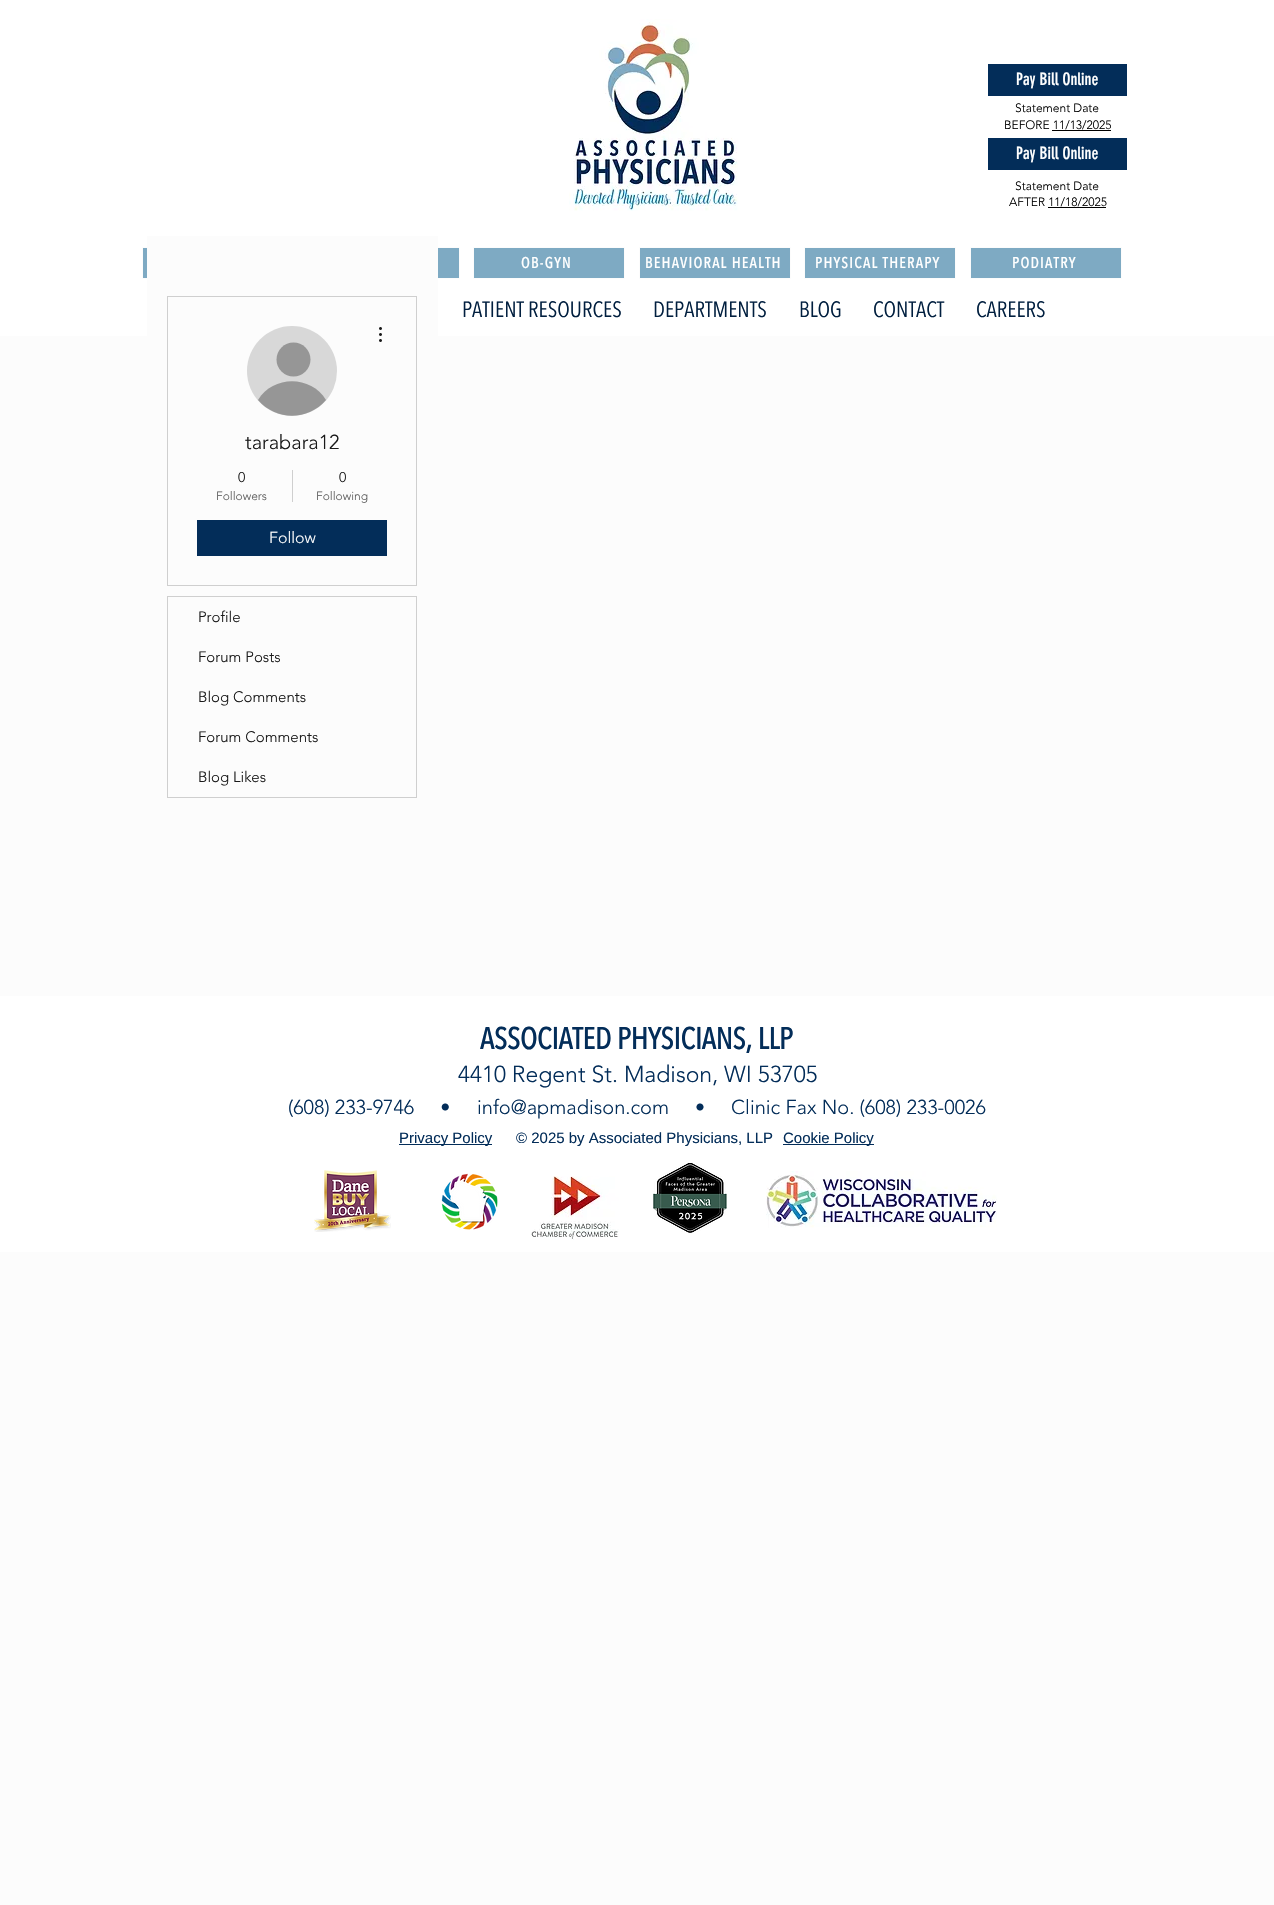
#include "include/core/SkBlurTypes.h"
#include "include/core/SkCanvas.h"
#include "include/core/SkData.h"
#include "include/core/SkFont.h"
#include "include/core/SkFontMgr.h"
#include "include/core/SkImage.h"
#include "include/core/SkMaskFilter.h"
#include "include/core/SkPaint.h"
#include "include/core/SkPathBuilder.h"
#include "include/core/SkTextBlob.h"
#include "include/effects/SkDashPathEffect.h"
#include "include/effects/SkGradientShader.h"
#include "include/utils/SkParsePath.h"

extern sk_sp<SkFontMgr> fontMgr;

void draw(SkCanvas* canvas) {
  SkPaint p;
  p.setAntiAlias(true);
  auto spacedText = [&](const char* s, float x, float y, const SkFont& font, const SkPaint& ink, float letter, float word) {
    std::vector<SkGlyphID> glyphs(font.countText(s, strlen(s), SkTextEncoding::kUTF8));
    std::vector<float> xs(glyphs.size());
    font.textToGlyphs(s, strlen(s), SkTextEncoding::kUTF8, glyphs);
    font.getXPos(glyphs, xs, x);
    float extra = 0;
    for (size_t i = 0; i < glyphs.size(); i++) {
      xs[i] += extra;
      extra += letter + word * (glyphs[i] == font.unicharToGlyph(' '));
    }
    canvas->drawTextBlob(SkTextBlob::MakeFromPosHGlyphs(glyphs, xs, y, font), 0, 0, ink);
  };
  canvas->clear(SkColorSetRGB(252, 252, 252));
  p.setColor(SK_ColorWHITE);
  canvas->drawRect(SkRect::MakeLTRB(0, 0, 1274, 336), p);
  canvas->drawImageRect(SkImages::DeferredFromEncodedData(SkData::MakeFromFileName("images/1.png")), SkRect::MakeLTRB(569, 19, 738, 211), SkSamplingOptions());
  p.setColor(SkColorSetRGB(3, 45, 89));
  canvas->drawRect(SkRect::MakeLTRB(988, 64, 1127, 96), p);
  p.setColor(SK_ColorBLACK);
  canvas->drawRect(SkRect::MakeLTRB(1052, 130, 1111, 131), p);
  p.setColor(SkColorSetRGB(3, 45, 89));
  canvas->drawRect(SkRect::MakeLTRB(988, 138, 1127, 170), p);
  p.setColor(SK_ColorBLACK);
  canvas->drawRect(SkRect::MakeLTRB(1048, 207, 1106, 208), p);
  p.setColor(SkColorSetRGB(126, 170, 195));
  canvas->drawRect(SkRect::MakeLTRB(143, 248, 147, 278), p);
  p.setStyle(SkPaint::kStroke_Style);
  p.setStrokeWidth(1);
  p.setColor(SkColorSetRGB(252, 252, 252));
  canvas->drawRect(SkRect::MakeLTRB(142.5f, 247.5f, 293.5f, 278.5f), p);
  p.setStyle(SkPaint::kFill_Style);
  p.setColor(SkColorSetRGB(126, 170, 195));
  canvas->drawRect(SkRect::MakeLTRB(438, 248, 459, 278), p);
  p.setStyle(SkPaint::kStroke_Style);
  p.setColor(SkColorSetRGB(252, 252, 252));
  canvas->drawRect(SkRect::MakeLTRB(308.5f, 247.5f, 459.5f, 278.5f), p);
  p.setStyle(SkPaint::kFill_Style);
  p.setColor(SkColorSetRGB(126, 170, 195));
  canvas->drawRect(SkRect::MakeLTRB(473.5f, 247.5f, 624.5f, 278.5f), p);
  p.setStyle(SkPaint::kStroke_Style);
  p.setColor(SkColorSetRGB(252, 252, 252));
  canvas->drawRect(SkRect::MakeLTRB(473.5f, 247.5f, 624.5f, 278.5f), p);
  p.setStyle(SkPaint::kFill_Style);
  p.setColor(SkColorSetRGB(126, 170, 195));
  canvas->drawRect(SkRect::MakeLTRB(639.5f, 247.5f, 790.5f, 278.5f), p);
  p.setStyle(SkPaint::kStroke_Style);
  p.setColor(SkColorSetRGB(252, 252, 252));
  canvas->drawRect(SkRect::MakeLTRB(639.5f, 247.5f, 790.5f, 278.5f), p);
  p.setStyle(SkPaint::kFill_Style);
  p.setColor(SkColorSetRGB(126, 170, 195));
  canvas->drawRect(SkRect::MakeLTRB(804.5f, 247.5f, 955.5f, 278.5f), p);
  p.setStyle(SkPaint::kStroke_Style);
  p.setColor(SkColorSetRGB(252, 252, 252));
  canvas->drawRect(SkRect::MakeLTRB(804.5f, 247.5f, 955.5f, 278.5f), p);
  p.setStyle(SkPaint::kFill_Style);
  p.setColor(SkColorSetRGB(126, 170, 195));
  canvas->drawRect(SkRect::MakeLTRB(970.5f, 247.5f, 1121.5f, 278.5f), p);
  p.setStyle(SkPaint::kStroke_Style);
  p.setColor(SkColorSetRGB(252, 252, 252));
  canvas->drawRect(SkRect::MakeLTRB(970.5f, 247.5f, 1121.5f, 278.5f), p);
  p.setStyle(SkPaint::kFill_Style);
  canvas->drawRect(SkRect::MakeLTRB(147, 236, 438, 336), p);
  p.setStyle(SkPaint::kStroke_Style);
  p.setColor(SkColorSetRGB(207, 207, 207));
  canvas->drawRect(SkRect::MakeLTRB(167.5f, 296.5f, 416.5f, 585.5f), p);
  p.setStyle(SkPaint::kFill_Style);
  p.setColor(SkColorSetRGB(216, 216, 216));
  canvas->drawCircle(292, 371, 45, p);
  p.setColor(SkColorSetRGB(150, 150, 150));
  canvas->drawCircle(293.5f, 359.5f, 17, p);
  canvas->drawPath(SkPathBuilder().moveTo(326, 400).cubicTo(308, 421, 276, 421, 258, 400).cubicTo(273, 375, 311, 375, 326, 400).close().detach(), p);
  canvas->drawImageRect(SkImages::DeferredFromEncodedData(SkData::MakeFromFileName("images/2.png")), SkRect::MakeLTRB(379, 327, 382, 342), SkSamplingOptions());
  p.setColor(SkColorSetRGB(207, 207, 207));
  canvas->drawRect(SkRect::MakeLTRB(292, 470, 293, 502), p);
  p.setColor(SkColorSetRGB(3, 45, 89));
  canvas->drawRect(SkRect::MakeLTRB(197, 520, 387, 556), p);
  p.setStyle(SkPaint::kStroke_Style);
  p.setColor(SkColorSetRGB(207, 207, 207));
  canvas->drawRect(SkRect::MakeLTRB(167.5f, 596.5f, 416.5f, 797.5f), p);
  p.setStyle(SkPaint::kFill_Style);
  p.setColor(SK_ColorWHITE);
  canvas->drawRect(SkRect::MakeLTRB(0, 996, 1274, 1252), p);
  p.setColor(SkColorSetRGB(3, 45, 89));
  canvas->drawRect(SkRect::MakeLTRB(399, 1144, 492, 1145), p);
  canvas->drawRect(SkRect::MakeLTRB(783, 1144, 874, 1145), p);
  canvas->drawImageRect(SkImages::DeferredFromEncodedData(SkData::MakeFromFileName("images/3.png")), SkRect::MakeLTRB(314, 1170, 391, 1232), SkSamplingOptions());
  canvas->drawImageRect(SkImages::DeferredFromEncodedData(SkData::MakeFromFileName("images/4.png")), SkRect::MakeLTRB(441, 1173, 498, 1230), SkSamplingOptions());
  canvas->drawImageRect(SkImages::DeferredFromEncodedData(SkData::MakeFromFileName("images/5.png")), SkRect::MakeLTRB(531, 1176, 619, 1240), SkSamplingOptions());
  canvas->drawImageRect(SkImages::DeferredFromEncodedData(SkData::MakeFromFileName("images/6.png")), SkRect::MakeLTRB(653, 1163, 727, 1233), SkSamplingOptions());
  canvas->drawImageRect(SkImages::DeferredFromEncodedData(SkData::MakeFromFileName("images/7.png")), SkRect::MakeLTRB(766, 1171, 997, 1228), SkSamplingOptions());
  SkFont font1(fontMgr->matchFamilyStyle("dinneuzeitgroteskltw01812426", SkFontStyle::Normal()), 17);
  font1.setSubpixel(true);
  p.setColor(SK_ColorWHITE);
  canvas->drawString("Pay Bill Online", 1016, 85, font1, p);
  SkFont font2(fontMgr->matchFamilyStyle("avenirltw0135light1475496", SkFontStyle(300, SkFontStyle::kNormal_Width, SkFontStyle::kUpright_Slant)), 12);
  font2.setSubpixel(true);
  p.setColor(SK_ColorBLACK);
  canvas->drawString("Statement Date", 1015, 112, font2, p);
  canvas->drawString("BEFORE 11/13/2025", 1004, 129, font2, p);
  p.setColor(SK_ColorWHITE);
  canvas->drawString("Pay Bill Online", 1016, 159, font1, p);
  p.setColor(SK_ColorBLACK);
  canvas->drawString("Statement Date", 1015, 190, font2, p);
  canvas->drawString("AFTER 11/18/2025", 1009, 206, font2, p);
  SkFont font3(fontMgr->matchFamilyStyle("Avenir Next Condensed", SkFontStyle::Bold()), 15);
  font3.setSubpixel(true);
  p.setColor(SK_ColorWHITE);
  spacedText("OB-GYN", 521, 268, font3, p, 1.5f, 0);
  spacedText("BEHAVIORAL HEALTH", 645, 268, font3, p, 1.5f, 0);
  spacedText("PHYSICAL THERAPY", 815, 268, font3, p, 1.5f, 0);
  spacedText("PODIATRY", 1012, 268, font3, p, 1.5f, 0);
  SkFont font4(fontMgr->matchFamilyStyle("Avenir Next Condensed", SkFontStyle::Normal()), 22);
  font4.setSubpixel(true);
  p.setColor(SkColorSetRGB(1, 31, 63));
  canvas->drawString("PATIENT RESOURCES", 462, 317, font4, p);
  canvas->drawString("DEPARTMENTS", 653, 317, font4, p);
  canvas->drawString("BLOG", 799, 317, font4, p);
  canvas->drawString("CONTACT", 873, 317, font4, p);
  canvas->drawString("CAREERS", 976, 317, font4, p);
  SkFont font5(fontMgr->matchFamilyStyle("avenirltw0135light1475496", SkFontStyle(300, SkFontStyle::kNormal_Width, SkFontStyle::kUpright_Slant)), 20);
  font5.setSubpixel(true);
  p.setColor(SkColorSetRGB(26, 26, 26));
  canvas->drawString("tarabara12", 245, 449, font5, p);
  SkFont font6(fontMgr->matchFamilyStyle("avenirltw0135light1475496", SkFontStyle(300, SkFontStyle::kNormal_Width, SkFontStyle::kUpright_Slant)), 14);
  font6.setSubpixel(true);
  canvas->drawString("0", 238, 482, font6, p);
  p.setColor(SkColorSetRGB(94, 94, 94));
  canvas->drawString("Followers", 216, 500, font2, p);
  p.setColor(SkColorSetRGB(26, 26, 26));
  canvas->drawString("0", 339, 482, font6, p);
  p.setColor(SkColorSetRGB(94, 94, 94));
  canvas->drawString("Following", 316, 500, font2, p);
  SkFont font7(fontMgr->matchFamilyStyle("avenirltw0135light1475496", SkFontStyle(300, SkFontStyle::kNormal_Width, SkFontStyle::kUpright_Slant)), 16);
  font7.setSubpixel(true);
  p.setColor(SK_ColorWHITE);
  canvas->drawString("Follow", 269, 543, font7, p);
  SkFont font8(fontMgr->matchFamilyStyle("avenirltw0135light1475496", SkFontStyle(300, SkFontStyle::kNormal_Width, SkFontStyle::kUpright_Slant)), 15);
  font8.setSubpixel(true);
  p.setColor(SkColorSetRGB(26, 26, 26));
  canvas->drawString("Profile", 198, 622, font8, p);
  canvas->drawString("Forum Posts", 198, 662, font8, p);
  canvas->drawString("Blog Comments", 198, 702, font8, p);
  canvas->drawString("Forum Comments", 198, 742, font8, p);
  canvas->drawString("Blog Likes", 198, 782, font8, p);
  SkFont font9(fontMgr->matchFamilyStyle("Avenir Next Condensed", SkFontStyle::Bold()), 30);
  font9.setSubpixel(true);
  p.setColor(SkColorSetRGB(3, 45, 89));
  canvas->drawString("ASSOCIATED PHYSICIANS, LLP", 480, 1049, font9, p);
  SkFont font10(fontMgr->matchFamilyStyle("Avenir", SkFontStyle(300, SkFontStyle::kNormal_Width, SkFontStyle::kUpright_Slant)), 23);
  font10.setSubpixel(true);
  canvas->drawString("4410 Regent St. Madison, WI 53705", 458, 1082, font10, p);
  canvas->drawString("(608) 233-9746     •", 288, 1114, font5, p);
  canvas->drawString("info@apmadison.com", 477, 1114, font5, p);
  canvas->drawString("•     Clinic Fax No. (608) 233-0026", 695, 1114, font5, p);
  SkFont font11(fontMgr->matchFamilyStyle("Liberation Sans", SkFontStyle::Normal()), 15);
  font11.setSubpixel(true);
  canvas->drawString("Privacy Policy", 399, 1143, font11, p);
  canvas->drawString("© 2025 by Associated Physicians, LLP", 516, 1143, font11, p);
  canvas->drawString("Cookie Policy", 783, 1143, font11, p);
}
